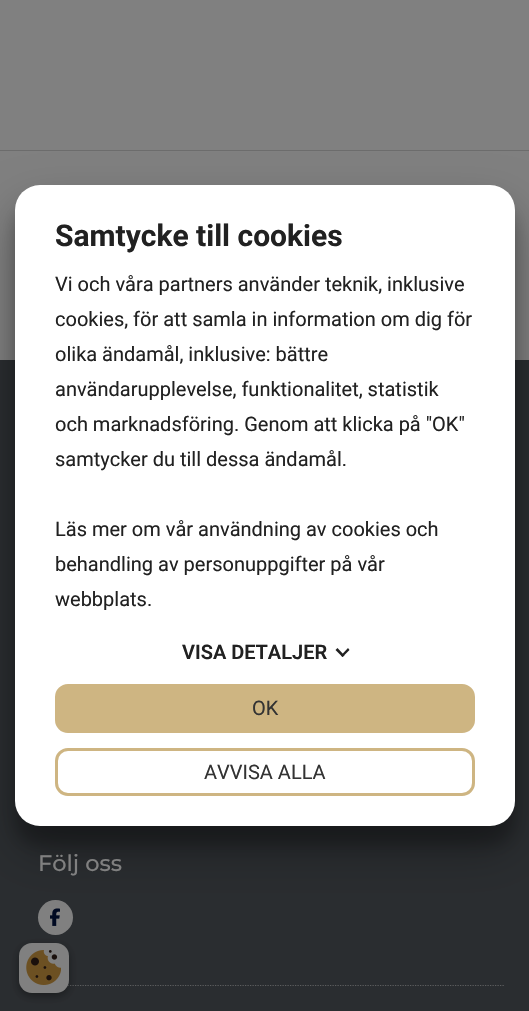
#include "include/core/SkBlurTypes.h"
#include "include/core/SkCanvas.h"
#include "include/core/SkData.h"
#include "include/core/SkFont.h"
#include "include/core/SkFontMgr.h"
#include "include/core/SkImage.h"
#include "include/core/SkMaskFilter.h"
#include "include/core/SkPaint.h"
#include "include/core/SkPathBuilder.h"
#include "include/core/SkTextBlob.h"
#include "include/effects/SkDashPathEffect.h"
#include "include/effects/SkGradientShader.h"
#include "include/utils/SkParsePath.h"

extern sk_sp<SkFontMgr> fontMgr;

void draw(SkCanvas* canvas) {
  SkPaint p;
  p.setAntiAlias(true);
  canvas->clear(SkColorSetRGB(128, 128, 128));
  p.setColor(SkColorSetRGB(108, 108, 108));
  canvas->drawRect(SkRect::MakeLTRB(0, 150, 529, 151), p);
  p.setColor(SkColorSetRGB(42, 45, 48));
  canvas->drawRect(SkRect::MakeLTRB(0, 360, 529, 1011), p);
  p.setColor(SkColorSetARGB(56, 0, 0, 0));
  p.setMaskFilter(SkMaskFilter::MakeBlur(kNormal_SkBlurStyle, 7.5f));
  canvas->drawRoundRect(SkRect::MakeLTRB(15, 204, 515, 845), 25, 25, p);
  p.setMaskFilter(nullptr);
  p.setColor(SkColorSetRGB(128, 128, 128));
  canvas->drawCircle(55.5f, 917.5f, 17.5f, p);
  canvas->drawImageRect(SkImages::DeferredFromEncodedData(SkData::MakeFromFileName("images/1.png")), SkRect::MakeLTRB(50, 908, 60, 926), SkSamplingOptions());
  p.setColor(SkColorSetARGB(77, 0, 0, 0));
  p.setMaskFilter(SkMaskFilter::MakeBlur(kNormal_SkBlurStyle, 24));
  canvas->drawRoundRect(SkRect::MakeLTRB(15, 209, 515, 850), 25, 25, p);
  p.setMaskFilter(nullptr);
  p.setColor(SK_ColorWHITE);
  canvas->drawRoundRect(SkRect::MakeLTRB(15, 185, 515, 826), 25, 25, p);
  p.setColor(SkColorSetRGB(33, 33, 33));
  canvas->drawPath(SkPathBuilder().moveTo(348, 648).lineTo(349.5f, 650).lineTo(342.5f, 657).lineTo(341, 655.5f).close().detach(), p);
  canvas->drawPath(SkPathBuilder().moveTo(337.5f, 648).lineTo(344.5f, 655.5f).lineTo(342.5f, 657).lineTo(335.5f, 650).close().detach(), p);
  p.setColor(SkColorSetRGB(206, 181, 130));
  canvas->drawRoundRect(SkRect::MakeLTRB(56.5f, 685.5f, 473.5f, 731.5f), 11.5f, 11.5f, p);
  p.setStyle(SkPaint::kStroke_Style);
  p.setStrokeWidth(3);
  canvas->drawRoundRect(SkRect::MakeLTRB(56.5f, 685.5f, 473.5f, 731.5f), 11.5f, 11.5f, p);
  canvas->drawRoundRect(SkRect::MakeLTRB(56.5f, 749.5f, 473.5f, 794.5f), 11.5f, 11.5f, p);
  p.setStrokeWidth(1.2f);
  p.setColor(SkColorSetRGB(93, 94, 95));
  p.setPathEffect(SkDashPathEffect::Make({{1.25f, 1.25f}}, 0));
  canvas->drawPath(SkPathBuilder().moveTo(25, 985.5f).lineTo(505, 985.5f).detach(), p);
  p.setPathEffect(nullptr);
  p.setStyle(SkPaint::kFill_Style);
  p.setColor(SkColorSetARGB(59, 0, 0, 0));
  p.setMaskFilter(SkMaskFilter::MakeBlur(kNormal_SkBlurStyle, 4));
  canvas->drawRoundRect(SkRect::MakeLTRB(19, 946, 69, 996), 13, 13, p);
  p.setMaskFilter(nullptr);
  p.setColor(SkColorSetARGB(41, 0, 0, 0));
  p.setMaskFilter(SkMaskFilter::MakeBlur(kNormal_SkBlurStyle, 4));
  canvas->drawRoundRect(SkRect::MakeLTRB(19, 946, 69, 996), 13, 13, p);
  p.setMaskFilter(nullptr);
  p.setColor(SkColorSetRGB(128, 128, 128));
  canvas->drawRoundRect(SkRect::MakeLTRB(19, 943, 69, 993), 13, 13, p);
  canvas->drawImageRect(SkImages::DeferredFromEncodedData(SkData::MakeFromFileName("images/2.png")), SkRect::MakeLTRB(26, 950, 61, 985), SkSamplingOptions());
  SkFont font1(fontMgr->matchFamilyStyle("Roboto", SkFontStyle::Bold()), 30);
  font1.setSubpixel(true);
  p.setColor(SkColorSetRGB(33, 33, 33));
  canvas->drawString("Samtycke till cookies", 55, 246, font1, p);
  SkFont font2(fontMgr->matchFamilyStyle("Roboto", SkFontStyle::Normal()), 20);
  font2.setSubpixel(true);
  canvas->drawString("Vi och våra partners använder teknik, inklusive", 55, 291, font2, p);
  canvas->drawString("cookies, för att samla in information om dig för", 55, 326, font2, p);
  canvas->drawString("olika ändamål, inklusive: bättre", 55, 361, font2, p);
  canvas->drawString("användarupplevelse, funktionalitet, statistik", 55, 396, font2, p);
  canvas->drawString("och marknadsföring. Genom att klicka på \"OK\"", 55, 431, font2, p);
  canvas->drawString("samtycker du till dessa ändamål.", 55, 466, font2, p);
  canvas->drawString("Läs mer om vår användning av cookies och", 55, 536, font2, p);
  canvas->drawString("behandling av personuppgifter på vår", 55, 571, font2, p);
  canvas->drawString("webbplats.", 55, 606, font2, p);
  SkFont font3(fontMgr->matchFamilyStyle("Roboto", SkFontStyle(600, SkFontStyle::kNormal_Width, SkFontStyle::kUpright_Slant)), 20);
  font3.setSubpixel(true);
  canvas->drawString("VISA DETALJER", 182, 659, font3, p);
  p.setColor(SkColorSetRGB(51, 51, 51));
  canvas->drawString("OK", 252, 715, font2, p);
  canvas->drawString("AVVISA ALLA", 204, 779, font2, p);
  SkFont font4(fontMgr->matchFamilyStyle("Montserrat", SkFontStyle(500, SkFontStyle::kNormal_Width, SkFontStyle::kUpright_Slant)), 22.5f);
  font4.setSubpixel(true);
  p.setColor(SkColorSetRGB(128, 128, 128));
  canvas->drawString("Följ oss", 38, 871, font4, p);
}
